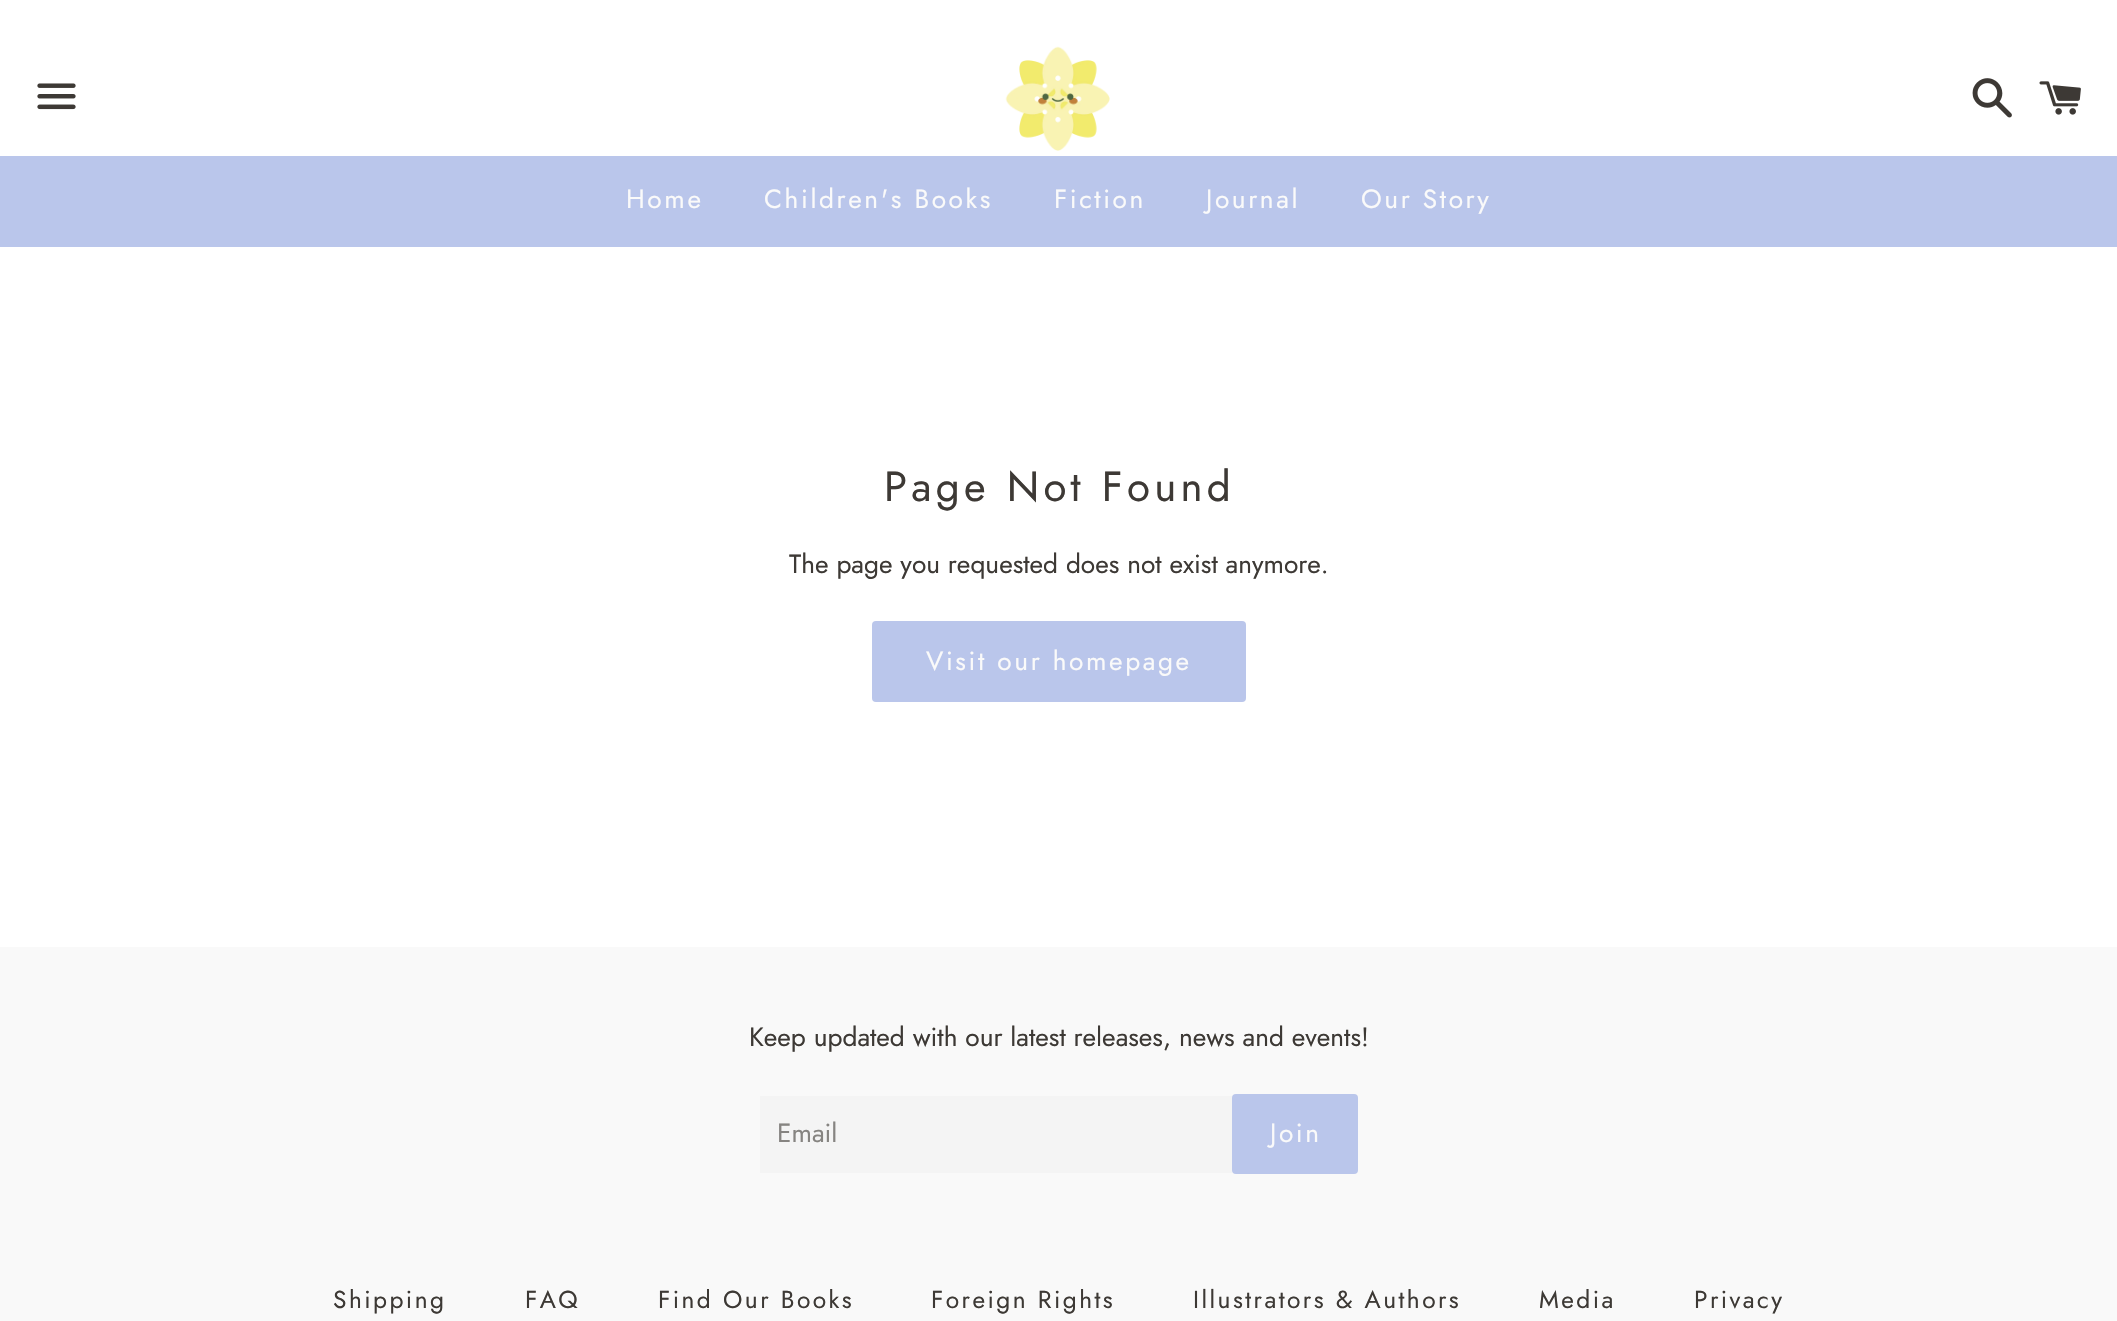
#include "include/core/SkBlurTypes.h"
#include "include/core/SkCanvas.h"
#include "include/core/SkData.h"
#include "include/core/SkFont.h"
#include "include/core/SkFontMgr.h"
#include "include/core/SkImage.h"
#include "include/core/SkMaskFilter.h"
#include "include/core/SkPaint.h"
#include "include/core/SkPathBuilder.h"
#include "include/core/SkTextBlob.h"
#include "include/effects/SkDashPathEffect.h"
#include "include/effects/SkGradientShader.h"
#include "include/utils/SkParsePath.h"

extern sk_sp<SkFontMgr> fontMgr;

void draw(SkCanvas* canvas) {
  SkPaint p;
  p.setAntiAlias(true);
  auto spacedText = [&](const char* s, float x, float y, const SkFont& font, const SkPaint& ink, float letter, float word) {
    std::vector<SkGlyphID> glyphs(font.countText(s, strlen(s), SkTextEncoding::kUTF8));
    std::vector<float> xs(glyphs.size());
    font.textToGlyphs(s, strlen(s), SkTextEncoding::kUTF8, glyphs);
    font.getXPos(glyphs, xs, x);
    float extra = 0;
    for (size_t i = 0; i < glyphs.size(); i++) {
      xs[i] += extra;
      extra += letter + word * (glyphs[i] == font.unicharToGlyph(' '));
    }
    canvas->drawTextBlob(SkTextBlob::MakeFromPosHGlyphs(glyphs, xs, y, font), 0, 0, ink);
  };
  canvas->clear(SK_ColorWHITE);
  canvas->drawImageRect(SkImages::DeferredFromEncodedData(SkData::MakeFromFileName("images/1.png")), SkRect::MakeLTRB(37, 83, 76, 110), SkSamplingOptions());
  canvas->drawImageRect(SkImages::DeferredFromEncodedData(SkData::MakeFromFileName("images/2.png")), SkRect::MakeLTRB(1005, 46, 1110, 151), SkSamplingOptions());
  canvas->drawImageRect(SkImages::DeferredFromEncodedData(SkData::MakeFromFileName("images/3.png")), SkRect::MakeLTRB(1972, 78, 2012, 118), SkSamplingOptions());
  canvas->drawImageRect(SkImages::DeferredFromEncodedData(SkData::MakeFromFileName("images/4.png")), SkRect::MakeLTRB(2039, 81, 2081, 115), SkSamplingOptions());
  p.setColor(SkColorSetRGB(186, 198, 235));
  canvas->drawRect(SkRect::MakeLTRB(0, 156, 2117, 247), p);
  canvas->drawRoundRect(SkRect::MakeLTRB(872, 621, 1246, 702), 4, 4, p);
  p.setColor(SkColorSetRGB(249, 249, 249));
  canvas->drawRect(SkRect::MakeLTRB(0, 947, 2117, 1321), p);
  p.setColor(SkColorSetRGB(244, 244, 244));
  canvas->drawRect(SkRect::MakeLTRB(760, 1096, 1232, 1173), p);
  p.setColor(SkColorSetRGB(186, 198, 235));
  canvas->drawRoundRect(SkRect::MakeLTRB(1232, 1094, 1358, 1174), 4, 4, p);
  SkFont font1(fontMgr->matchFamilyStyle("Jost", SkFontStyle::Normal()), 26.25f);
  font1.setSubpixel(true);
  p.setColor(SkColorSetRGB(250, 250, 250));
  spacedText("Home", 626, 208, font1, p, 2.6f, 0);
  spacedText("Children's Books", 764, 208, font1, p, 2.6f, 0);
  spacedText("Fiction", 1054, 208, font1, p, 2.6f, 0);
  spacedText("Journal", 1206, 208, font1, p, 2.6f, 0);
  spacedText("Our Story", 1361, 208, font1, p, 2.6f, 0);
  SkFont font2(fontMgr->matchFamilyStyle("Jost", SkFontStyle::Normal()), 42);
  font2.setSubpixel(true);
  p.setColor(SkColorSetRGB(61, 57, 53));
  spacedText("Page Not Found", 884, 501, font2, p, 4.25f, 0);
  canvas->drawString("The page you requested does not exist anymore.", 789, 573, font1, p);
  p.setColor(SkColorSetRGB(250, 250, 250));
  spacedText("Visit our homepage", 926, 670, font1, p, 2.6f, 0);
  p.setColor(SkColorSetRGB(61, 57, 53));
  canvas->drawString("Keep updated with our latest releases, news and events!", 749, 1046, font1, p);
  p.setColor(SkColorSetRGB(134, 132, 129));
  canvas->drawString("Email", 777, 1142, font1, p);
  p.setColor(SkColorSetRGB(250, 250, 250));
  spacedText("Join", 1270, 1142, font1, p, 2.6f, 0);
  SkFont font3(fontMgr->matchFamilyStyle("Jost", SkFontStyle::Normal()), 24.5f);
  font3.setSubpixel(true);
  p.setColor(SkColorSetRGB(61, 57, 53));
  spacedText("Shipping", 333, 1308, font3, p, 2.45f, 0);
  spacedText("FAQ", 525, 1308, font3, p, 2.45f, 0);
  spacedText("Find Our Books", 658, 1308, font3, p, 2.45f, 0);
  spacedText("Foreign Rights", 931, 1308, font3, p, 2.45f, 0);
  spacedText("Illustrators & Authors", 1193, 1308, font3, p, 2.45f, 0);
  spacedText("Media", 1539, 1308, font3, p, 2.45f, 0);
  spacedText("Privacy", 1694, 1308, font3, p, 2.45f, 0);
}
